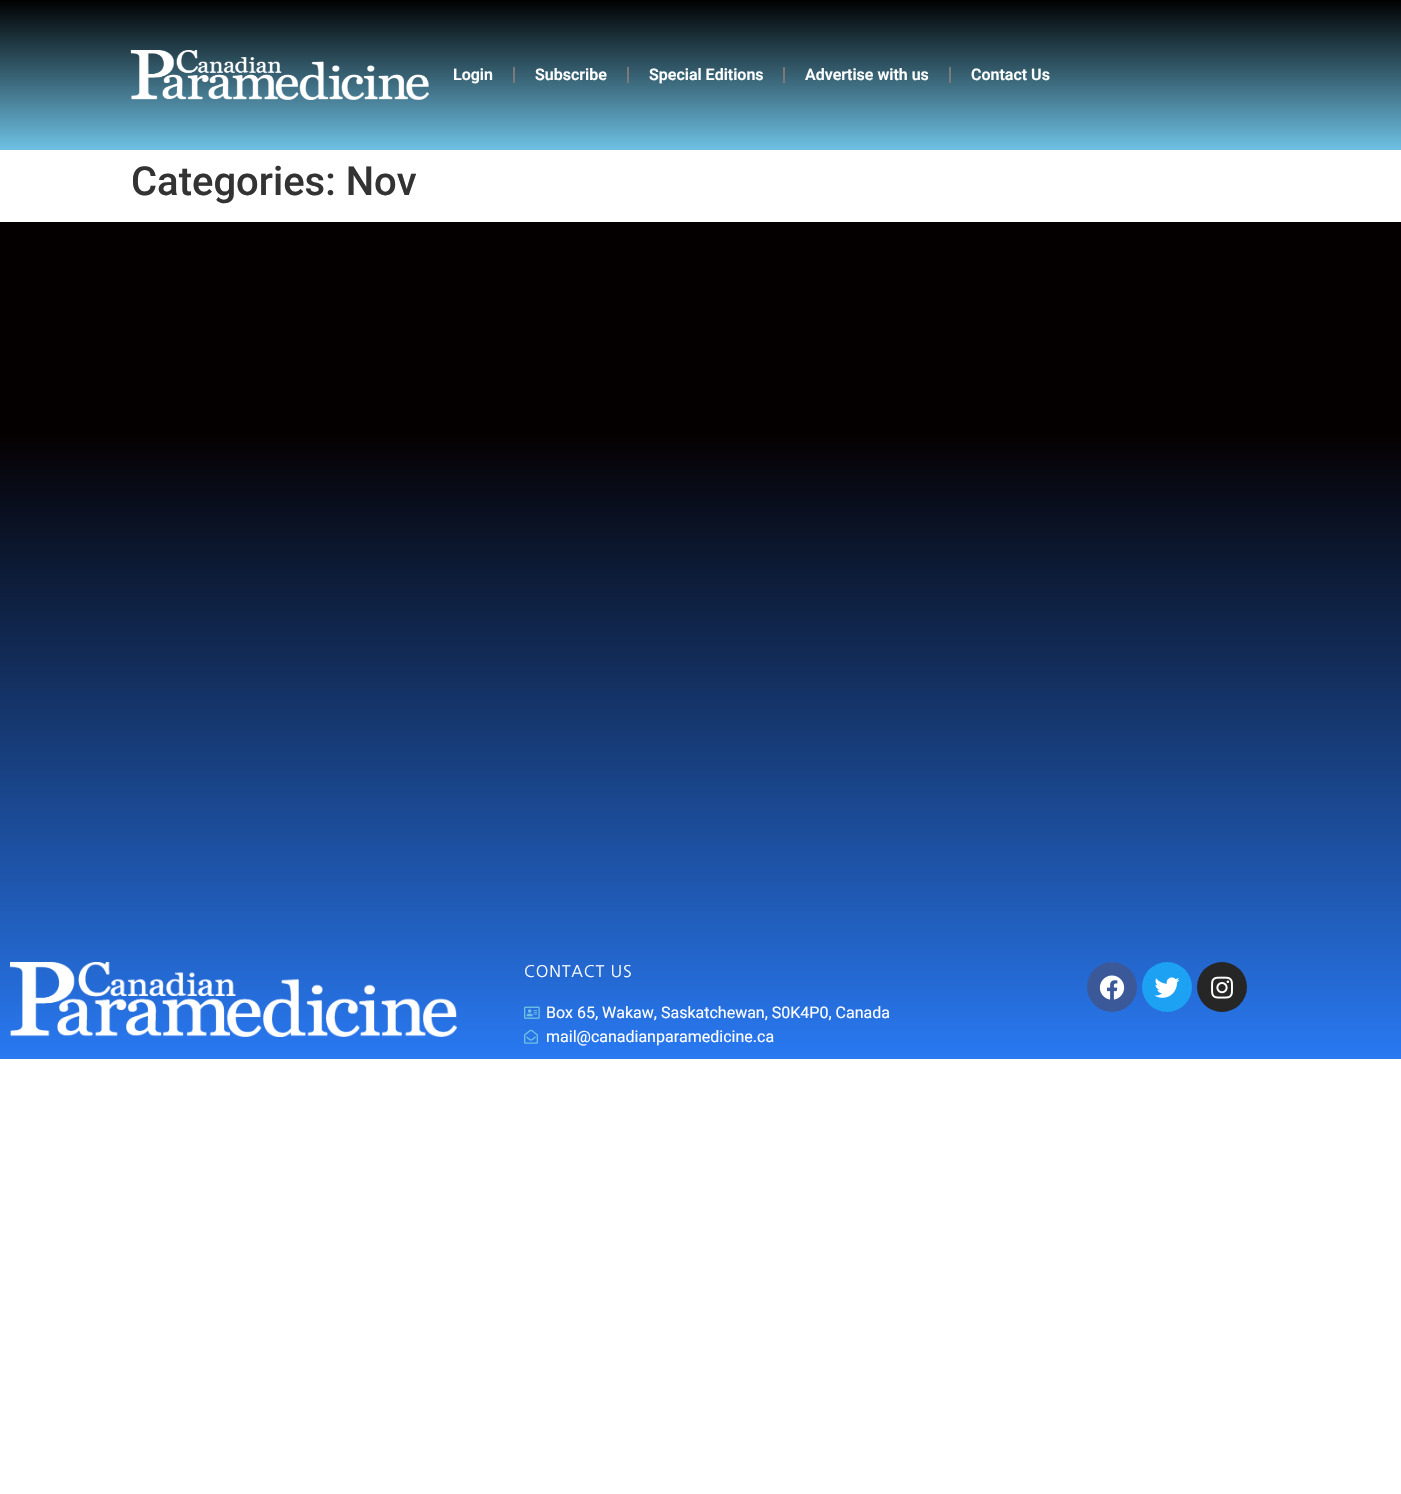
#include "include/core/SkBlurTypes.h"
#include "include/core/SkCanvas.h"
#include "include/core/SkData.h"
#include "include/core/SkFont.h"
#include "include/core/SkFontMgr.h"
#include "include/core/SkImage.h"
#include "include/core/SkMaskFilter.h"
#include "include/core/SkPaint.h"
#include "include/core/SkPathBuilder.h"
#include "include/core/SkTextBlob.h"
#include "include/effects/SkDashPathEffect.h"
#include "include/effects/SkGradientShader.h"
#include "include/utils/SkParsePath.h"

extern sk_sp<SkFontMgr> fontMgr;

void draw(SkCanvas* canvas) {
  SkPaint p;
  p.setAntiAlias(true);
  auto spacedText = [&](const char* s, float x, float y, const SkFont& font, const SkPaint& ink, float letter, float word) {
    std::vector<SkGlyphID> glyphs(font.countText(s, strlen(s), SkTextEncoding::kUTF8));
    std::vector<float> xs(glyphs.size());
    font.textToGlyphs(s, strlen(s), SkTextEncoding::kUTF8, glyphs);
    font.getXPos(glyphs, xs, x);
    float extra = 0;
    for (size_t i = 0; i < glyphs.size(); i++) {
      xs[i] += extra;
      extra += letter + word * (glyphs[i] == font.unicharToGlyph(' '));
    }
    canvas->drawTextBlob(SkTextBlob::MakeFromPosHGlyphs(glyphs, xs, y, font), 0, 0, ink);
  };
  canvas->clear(SK_ColorWHITE);
  {
    const SkColor colors[] = {SK_ColorBLACK, SkColorSetRGB(110, 193, 228)};
    const float stops[] = {0, 1};
    const SkPoint ends[] = {{701, 0}, {701, 150}};
    p.setShader(SkGradientShader::MakeLinear(ends, colors, stops, 2, SkTileMode::kClamp));
    p.setAlpha(255);
  }
  canvas->drawRect(SkRect::MakeLTRB(0, 0, 1401, 150), p);
  canvas->drawImageRect(SkImages::DeferredFromEncodedData(SkData::MakeFromFileName("images/1.png")), SkRect::MakeLTRB(130, 50, 429, 100), SkSamplingOptions());
  p.setShader(nullptr);
  p.setColor(SkColorSetRGB(122, 122, 122));
  canvas->drawRect(SkRect::MakeLTRB(513, 67, 515, 83), p);
  canvas->drawRect(SkRect::MakeLTRB(627, 67, 629, 83), p);
  canvas->drawRect(SkRect::MakeLTRB(783, 67, 785, 83), p);
  canvas->drawRect(SkRect::MakeLTRB(949, 67, 951, 83), p);
  {
    const SkColor colors[] = {SkColorSetRGB(5, 0, 0), SkColorSetRGB(41, 121, 242)};
    const float stops[] = {0.25f, 1};
    const SkPoint ends[] = {{701, 222}, {701, 1059}};
    p.setShader(SkGradientShader::MakeLinear(ends, colors, stops, 2, SkTileMode::kClamp));
    p.setAlpha(255);
  }
  canvas->drawRect(SkRect::MakeLTRB(0, 222, 1401, 1059), p);
  canvas->drawImageRect(SkImages::DeferredFromEncodedData(SkData::MakeFromFileName("images/2.png")), SkRect::MakeLTRB(10, 962, 457, 1037), SkSamplingOptions());
  canvas->drawImageRect(SkImages::DeferredFromEncodedData(SkData::MakeFromFileName("images/3.png")), SkRect::MakeLTRB(524, 1006, 540, 1019), SkSamplingOptions());
  canvas->drawImageRect(SkImages::DeferredFromEncodedData(SkData::MakeFromFileName("images/4.png")), SkRect::MakeLTRB(524, 1029, 538, 1044), SkSamplingOptions());
  p.setShader(nullptr);
  p.setColor(SkColorSetRGB(59, 89, 152));
  canvas->drawCircle(1112, 987, 25, p);
  canvas->drawImageRect(SkImages::DeferredFromEncodedData(SkData::MakeFromFileName("images/5.png")), SkRect::MakeLTRB(1099, 975, 1125, 1000), SkSamplingOptions());
  p.setColor(SkColorSetRGB(29, 161, 242));
  canvas->drawCircle(1167, 987, 25, p);
  canvas->drawImageRect(SkImages::DeferredFromEncodedData(SkData::MakeFromFileName("images/6.png")), SkRect::MakeLTRB(1154, 977, 1180, 998), SkSamplingOptions());
  p.setColor(SkColorSetRGB(38, 38, 38));
  canvas->drawCircle(1222, 987, 25, p);
  canvas->drawImageRect(SkImages::DeferredFromEncodedData(SkData::MakeFromFileName("images/7.png")), SkRect::MakeLTRB(1211, 976, 1233, 999), SkSamplingOptions());
  SkFont font1(fontMgr->matchFamilyStyle("Roboto", SkFontStyle(600, SkFontStyle::kNormal_Width, SkFontStyle::kUpright_Slant)), 16);
  font1.setSubpixel(true);
  p.setColor(SK_ColorWHITE);
  canvas->drawString("Login", 453, 80, font1, p);
  canvas->drawString("Subscribe", 535, 80, font1, p);
  canvas->drawString("Special Editions", 649, 80, font1, p);
  canvas->drawString("Advertise with us", 805, 80, font1, p);
  canvas->drawString("Contact Us", 971, 80, font1, p);
  SkFont font2(fontMgr->matchFamilyStyle("Roboto", SkFontStyle(500, SkFontStyle::kNormal_Width, SkFontStyle::kUpright_Slant)), 40);
  font2.setSubpixel(true);
  p.setColor(SkColorSetRGB(51, 51, 51));
  canvas->drawString("Categories: Nov", 131, 195, font2, p);
  SkFont font3(fontMgr->matchFamilyStyle("NanumGothic", SkFontStyle::Normal()), 16);
  font3.setSubpixel(true);
  p.setColor(SK_ColorWHITE);
  spacedText("CONTACT US", 524, 977, font3, p, 0.9f, 0);
  SkFont font4(fontMgr->matchFamilyStyle("Roboto", SkFontStyle::Normal()), 16);
  font4.setSubpixel(true);
  canvas->drawString("Box 65, Wakaw, Saskatchewan, S0K4P0, Canada", 546, 1018, font4, p);
  canvas->drawString("mail@canadianparamedicine.ca", 546, 1042, font4, p);
}
